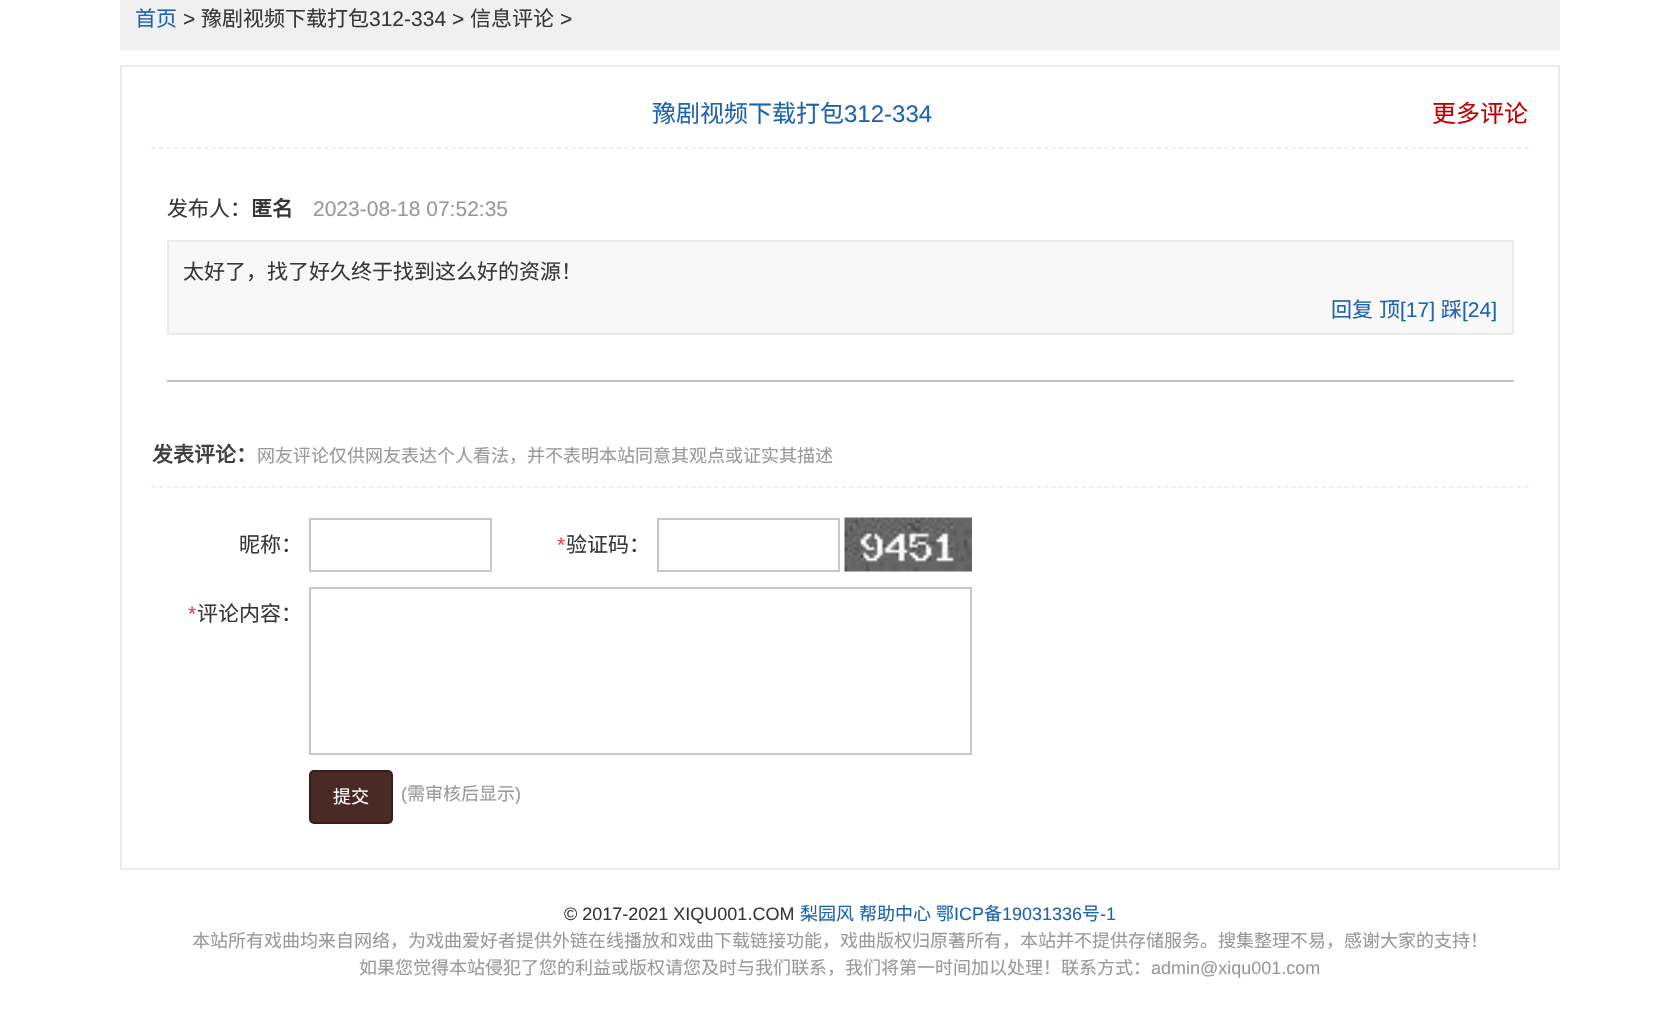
#include "include/core/SkBlurTypes.h"
#include "include/core/SkCanvas.h"
#include "include/core/SkData.h"
#include "include/core/SkFont.h"
#include "include/core/SkFontMgr.h"
#include "include/core/SkImage.h"
#include "include/core/SkMaskFilter.h"
#include "include/core/SkPaint.h"
#include "include/core/SkPathBuilder.h"
#include "include/core/SkTextBlob.h"
#include "include/effects/SkDashPathEffect.h"
#include "include/effects/SkGradientShader.h"
#include "include/utils/SkParsePath.h"

extern sk_sp<SkFontMgr> fontMgr;

void draw(SkCanvas* canvas) {
  SkPaint p;
  p.setAntiAlias(true);
  canvas->clear(SK_ColorWHITE);
  p.setColor(SkColorSetRGB(240, 240, 240));
  canvas->drawRect(SkRect::MakeLTRB(120, 0, 1560, 50), p);
  p.setStyle(SkPaint::kStroke_Style);
  p.setStrokeWidth(2);
  p.setColor(SkColorSetRGB(235, 235, 235));
  canvas->drawRect(SkRect::MakeLTRB(121, 66, 1559, 869), p);
  p.setStrokeWidth(1.5f);
  p.setPathEffect(SkDashPathEffect::Make({{4.5f, 3}}, 0));
  canvas->drawPath(SkPathBuilder().moveTo(151.5f, 148).lineTo(1528.5f, 148).detach(), p);
  p.setPathEffect(nullptr);
  p.setStyle(SkPaint::kFill_Style);
  p.setColor(SkColorSetRGB(192, 192, 192));
  canvas->drawRect(SkRect::MakeLTRB(167, 380, 1514, 382), p);
  p.setColor(SkColorSetRGB(248, 248, 248));
  canvas->drawRect(SkRect::MakeLTRB(168, 241, 1513, 334), p);
  p.setStyle(SkPaint::kStroke_Style);
  p.setStrokeWidth(2);
  p.setColor(SkColorSetRGB(235, 235, 235));
  canvas->drawRect(SkRect::MakeLTRB(168, 241, 1513, 334), p);
  p.setStrokeWidth(1.5f);
  p.setPathEffect(SkDashPathEffect::Make({{4.5f, 3}}, 0));
  canvas->drawPath(SkPathBuilder().moveTo(151.5f, 487).lineTo(1528.5f, 487).detach(), p);
  p.setPathEffect(nullptr);
  p.setStrokeWidth(2);
  p.setColor(SkColorSetRGB(199, 199, 199));
  canvas->drawRect(SkRect::MakeLTRB(310, 519, 491, 571), p);
  canvas->drawRect(SkRect::MakeLTRB(658, 519, 839, 571), p);
  canvas->drawImageRect(SkImages::DeferredFromEncodedData(SkData::MakeFromFileName("images/1.png")), SkRect::MakeLTRB(844, 517, 972, 572), SkSamplingOptions());
  canvas->drawRect(SkRect::MakeLTRB(310, 588, 971, 754), p);
  p.setStyle(SkPaint::kFill_Style);
  p.setColor(SkColorSetRGB(73, 42, 37));
  canvas->drawRoundRect(SkRect::MakeLTRB(310, 771, 392, 823), 4, 4, p);
  p.setStyle(SkPaint::kStroke_Style);
  p.setColor(SkColorSetRGB(57, 28, 32));
  canvas->drawRoundRect(SkRect::MakeLTRB(310, 771, 392, 823), 4, 4, p);
  SkFont font1(fontMgr->matchFamilyStyle("Noto Sans CJK SC", SkFontStyle::Normal()), 21);
  font1.setSubpixel(true);
  p.setStyle(SkPaint::kFill_Style);
  p.setColor(SkColorSetRGB(30, 99, 176));
  canvas->drawString("首页", 135, 26, font1, p);
  SkFont font2(fontMgr->matchFamilyStyle("Liberation Sans", SkFontStyle::Normal()), 21);
  font2.setSubpixel(true);
  p.setColor(SkColorSetRGB(55, 55, 55));
  canvas->drawString(">", 183, 26, font2, p);
  canvas->drawString("豫剧视频下载打包", 201, 26, font1, p);
  canvas->drawString("312-334 >", 369, 26, font2, p);
  canvas->drawString("信息评论", 470, 26, font1, p);
  canvas->drawString(">", 560, 26, font2, p);
  SkFont font3(fontMgr->matchFamilyStyle("Noto Sans CJK SC", SkFontStyle::Normal()), 24);
  font3.setSubpixel(true);
  p.setColor(SkColorSetRGB(30, 99, 176));
  canvas->drawString("豫剧视频下载打包", 652, 122, font3, p);
  SkFont font4(fontMgr->matchFamilyStyle("Liberation Sans", SkFontStyle::Normal()), 24);
  font4.setSubpixel(true);
  canvas->drawString("312-334", 844, 122, font4, p);
  p.setColor(SkColorSetRGB(192, 0, 0));
  canvas->drawString("更多评论", 1432, 122, font3, p);
  p.setColor(SkColorSetRGB(55, 55, 55));
  canvas->drawString("发布人：", 167, 216, font1, p);
  SkFont font5(fontMgr->matchFamilyStyle("Noto Sans CJK SC", SkFontStyle::Bold()), 21);
  font5.setSubpixel(true);
  canvas->drawString("匿名", 251, 216, font5, p);
  p.setColor(SkColorSetRGB(153, 153, 153));
  canvas->drawString("2023-08-18 07:52:35", 313, 216, font2, p);
  p.setColor(SkColorSetRGB(55, 55, 55));
  canvas->drawString("太好了，找了好久终于找到这么好的资源！", 183, 279, font1, p);
  p.setColor(SkColorSetRGB(30, 99, 176));
  canvas->drawString("回复", 1331, 317, font1, p);
  canvas->drawString("顶", 1379, 317, font1, p);
  canvas->drawString("[17]", 1400, 317, font2, p);
  canvas->drawString("踩", 1441, 317, font1, p);
  canvas->drawString("[24]", 1462, 317, font2, p);
  p.setColor(SkColorSetRGB(64, 64, 64));
  canvas->drawString("发表评论：", 152, 462, font5, p);
  SkFont font6(fontMgr->matchFamilyStyle("Noto Sans CJK SC", SkFontStyle::Normal()), 18);
  font6.setSubpixel(true);
  p.setColor(SkColorSetRGB(153, 153, 153));
  canvas->drawString("网友评论仅供网友表达个人看法，并不表明本站同意其观点或证实其描述", 257, 462, font6, p);
  p.setColor(SkColorSetRGB(55, 55, 55));
  canvas->drawString("昵称：", 239, 552, font1, p);
  p.setColor(SkColorSetRGB(246, 61, 61));
  canvas->drawString("*", 557, 552, font2, p);
  p.setColor(SkColorSetRGB(55, 55, 55));
  canvas->drawString("验证码：", 566, 552, font1, p);
  p.setColor(SkColorSetRGB(246, 61, 61));
  canvas->drawString("*", 188, 621, font2, p);
  p.setColor(SkColorSetRGB(55, 55, 55));
  canvas->drawString("评论内容：", 197, 621, font1, p);
  p.setColor(SK_ColorWHITE);
  canvas->drawString("提交", 333, 803, font6, p);
  SkFont font7(fontMgr->matchFamilyStyle("Liberation Sans", SkFontStyle::Normal()), 18);
  font7.setSubpixel(true);
  p.setColor(SkColorSetRGB(153, 153, 153));
  canvas->drawString("(", 401, 800, font7, p);
  canvas->drawString("需审核后显示", 407, 800, font6, p);
  canvas->drawString(")", 515, 800, font7, p);
  p.setColor(SkColorSetRGB(55, 55, 55));
  canvas->drawString("© 2017-2021 XIQU001.COM", 564, 920, font7, p);
  p.setColor(SkColorSetRGB(30, 99, 176));
  canvas->drawString("梨园风", 800, 920, font6, p);
  canvas->drawString("帮助中心", 859, 920, font6, p);
  canvas->drawString("鄂", 936, 920, font6, p);
  canvas->drawString("ICP", 954, 920, font7, p);
  canvas->drawString("备", 984, 920, font6, p);
  canvas->drawString("19031336", 1002, 920, font7, p);
  canvas->drawString("号", 1082, 920, font6, p);
  canvas->drawString("-1", 1100, 920, font7, p);
  p.setColor(SkColorSetRGB(153, 153, 153));
  canvas->drawString("本站所有戏曲均来自网络，为戏曲爱好者提供外链在线播放和戏曲下载链接功能，戏曲版权归原著所有，本站并不提供存储服务。搜集整理不易，感谢大家的支持！", 192, 947, font6, p);
  canvas->drawString("如果您觉得本站侵犯了您的利益或版权请您及时与我们联系，我们将第一时间加以处理！联系方式：", 359, 974, font6, p);
  canvas->drawString("admin@xiqu001.com", 1151, 974, font7, p);
}
